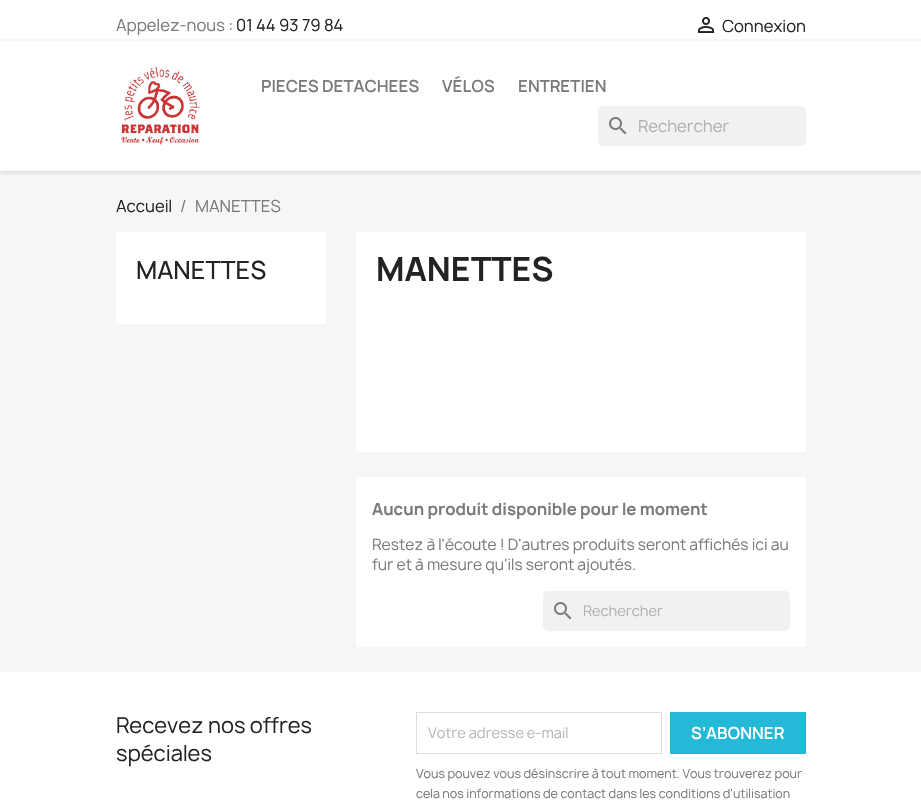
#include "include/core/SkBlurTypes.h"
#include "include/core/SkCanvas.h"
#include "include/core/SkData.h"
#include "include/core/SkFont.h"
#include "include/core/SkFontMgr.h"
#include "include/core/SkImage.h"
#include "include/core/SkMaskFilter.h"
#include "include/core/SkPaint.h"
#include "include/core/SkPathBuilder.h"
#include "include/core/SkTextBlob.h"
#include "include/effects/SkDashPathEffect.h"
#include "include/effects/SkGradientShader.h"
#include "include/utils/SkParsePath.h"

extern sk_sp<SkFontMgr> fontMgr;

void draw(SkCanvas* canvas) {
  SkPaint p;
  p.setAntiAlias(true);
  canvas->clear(SK_ColorWHITE);
  p.setColor(SkColorSetRGB(246, 246, 246));
  canvas->drawRect(SkRect::MakeLTRB(0, 171, 921, 672), p);
  canvas->save();
  canvas->clipRect(SkRect::MakeLTRB(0, 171, 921, 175));
  p.setColor(SkColorSetARGB(28, 0, 0, 0));
  p.setMaskFilter(SkMaskFilter::MakeBlur(kNormal_SkBlurStyle, 2.5f));
  canvas->drawRect(SkRect::MakeLTRB(0, 2, 921, 173), p);
  p.setMaskFilter(nullptr);
  canvas->restore();
  p.setColor(SkColorSetRGB(246, 246, 246));
  canvas->drawRect(SkRect::MakeLTRB(0, 39, 921, 41), p);
  canvas->drawImageRect(SkImages::DeferredFromEncodedData(SkData::MakeFromFileName("images/1.png")), SkRect::MakeLTRB(698, 17, 714, 33), SkSamplingOptions());
  canvas->drawImageRect(SkImages::DeferredFromEncodedData(SkData::MakeFromFileName("images/2.png")), SkRect::MakeLTRB(121, 67, 200, 145), SkSamplingOptions());
  p.setColor(SkColorSetRGB(241, 241, 241));
  canvas->drawRoundRect(SkRect::MakeLTRB(598, 106, 806, 146), 5, 5, p);
  canvas->drawImageRect(SkImages::DeferredFromEncodedData(SkData::MakeFromFileName("images/3.png")), SkRect::MakeLTRB(609, 117, 627, 135), SkSamplingOptions());
  p.setColor(SK_ColorWHITE);
  canvas->drawRect(SkRect::MakeLTRB(116, 232, 326, 324), p);
  canvas->drawRect(SkRect::MakeLTRB(356, 232, 806, 452), p);
  canvas->drawRect(SkRect::MakeLTRB(356, 477, 806, 647), p);
  p.setColor(SkColorSetRGB(241, 241, 241));
  canvas->drawRoundRect(SkRect::MakeLTRB(543, 591, 790, 631), 5, 5, p);
  canvas->drawImageRect(SkImages::DeferredFromEncodedData(SkData::MakeFromFileName("images/3.png")), SkRect::MakeLTRB(554, 602, 572, 620), SkSamplingOptions());
  p.setStyle(SkPaint::kStroke_Style);
  p.setStrokeWidth(1);
  p.setColor(SkColorSetRGB(221, 221, 221));
  canvas->drawRect(SkRect::MakeLTRB(416.5f, 712.5f, 661.5f, 753.5f), p);
  p.setStyle(SkPaint::kFill_Style);
  p.setColor(SkColorSetRGB(36, 185, 215));
  canvas->drawRect(SkRect::MakeLTRB(670, 712, 806, 754), p);
  SkFont font1(fontMgr->matchFamilyStyle("Manrope", SkFontStyle::Normal()), 16);
  font1.setSubpixel(true);
  p.setColor(SkColorSetRGB(122, 122, 122));
  canvas->drawString("Appelez-nous :", 116, 31, font1, p);
  p.setColor(SkColorSetRGB(35, 35, 35));
  canvas->drawString("01 44 93 79 84", 236, 31, font1, p);
  canvas->drawString("Connexion", 722, 32, font1, p);
  SkFont font2(fontMgr->matchFamilyStyle("Manrope", SkFontStyle(600, SkFontStyle::kNormal_Width, SkFontStyle::kUpright_Slant)), 16);
  font2.setSubpixel(true);
  p.setColor(SkColorSetRGB(122, 122, 122));
  canvas->drawString("PIECES DETACHEES", 261, 92, font2, p);
  canvas->drawString("VÉLOS", 442, 92, font2, p);
  canvas->drawString("ENTRETIEN", 518, 92, font2, p);
  p.setColor(SkColorSetRGB(177, 177, 177));
  canvas->drawString("Rechercher", 638, 132, font1, p);
  p.setColor(SkColorSetRGB(35, 35, 35));
  canvas->drawString("Accueil", 116, 212, font1, p);
  p.setColor(SkColorSetRGB(122, 122, 122));
  canvas->drawString("/", 180, 212, font1, p);
  canvas->drawString("MANETTES", 195, 212, font1, p);
  SkFont font3(fontMgr->matchFamilyStyle("Manrope", SkFontStyle(500, SkFontStyle::kNormal_Width, SkFontStyle::kUpright_Slant)), 24);
  font3.setSubpixel(true);
  p.setColor(SkColorSetRGB(35, 35, 35));
  canvas->drawString("MANETTES", 136, 279, font3, p);
  SkFont font4(fontMgr->matchFamilyStyle("Manrope", SkFontStyle::Bold()), 32);
  font4.setSubpixel(true);
  canvas->drawString("MANETTES", 376, 281, font4, p);
  SkFont font5(fontMgr->matchFamilyStyle("Manrope", SkFontStyle::Bold()), 16);
  font5.setSubpixel(true);
  p.setColor(SkColorSetRGB(122, 122, 122));
  canvas->drawString("Aucun produit disponible pour le moment", 372, 515, font5, p);
  SkFont font6(fontMgr->matchFamilyStyle("Manrope", SkFontStyle::Normal()), 15);
  font6.setSubpixel(true);
  canvas->drawString("Restez à l'écoute ! D'autres produits seront affichés ici au", 372, 550, font6, p);
  canvas->drawString("fur et à mesure qu'ils seront ajoutés.", 372, 570, font6, p);
  SkFont font7(fontMgr->matchFamilyStyle("Manrope", SkFontStyle::Normal()), 14);
  font7.setSubpixel(true);
  p.setColor(SkColorSetRGB(177, 177, 177));
  canvas->drawString("Rechercher", 583, 616, font7, p);
  SkFont font8(fontMgr->matchFamilyStyle("Manrope", SkFontStyle::Normal()), 21);
  font8.setSubpixel(true);
  p.setColor(SkColorSetRGB(35, 35, 35));
  canvas->drawString("Recevez nos offres", 116, 733, font8, p);
  canvas->drawString("spéciales", 116, 761, font8, p);
  p.setColor(SkColorSetRGB(183, 183, 183));
  canvas->drawString("Votre adresse e-mail", 428, 738, font7, p);
  p.setColor(SK_ColorWHITE);
  canvas->drawString("S’ABONNER", 691, 739, font2, p);
  SkFont font9(fontMgr->matchFamilyStyle("Manrope", SkFontStyle::Normal()), 12);
  font9.setSubpixel(true);
  p.setColor(SkColorSetRGB(122, 122, 122));
  canvas->drawString("Vous pouvez vous désinscrire à tout moment. Vous trouverez pour", 416, 778, font9, p);
  canvas->drawString("cela nos informations de contact dans les conditions d'utilisation", 416, 798, font9, p);
}
